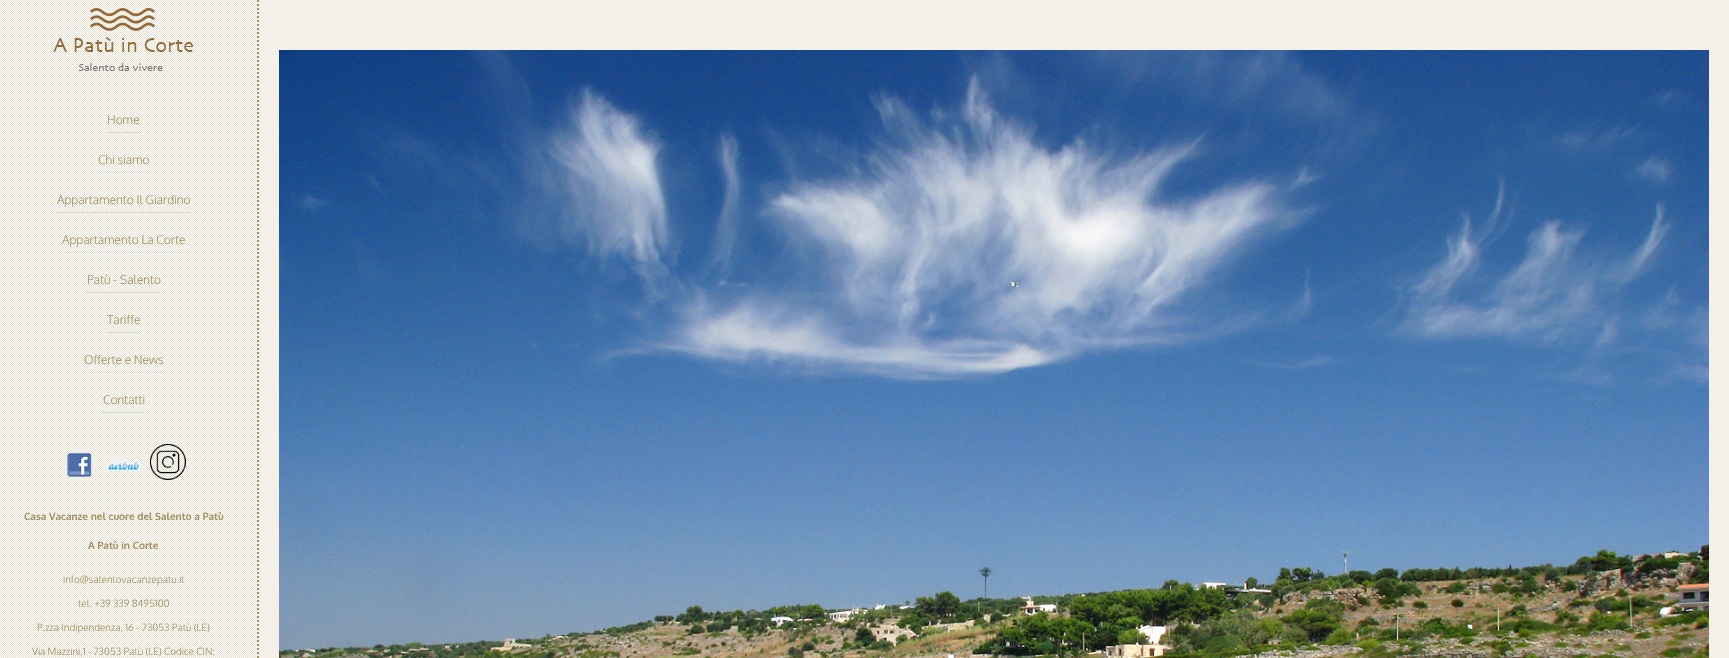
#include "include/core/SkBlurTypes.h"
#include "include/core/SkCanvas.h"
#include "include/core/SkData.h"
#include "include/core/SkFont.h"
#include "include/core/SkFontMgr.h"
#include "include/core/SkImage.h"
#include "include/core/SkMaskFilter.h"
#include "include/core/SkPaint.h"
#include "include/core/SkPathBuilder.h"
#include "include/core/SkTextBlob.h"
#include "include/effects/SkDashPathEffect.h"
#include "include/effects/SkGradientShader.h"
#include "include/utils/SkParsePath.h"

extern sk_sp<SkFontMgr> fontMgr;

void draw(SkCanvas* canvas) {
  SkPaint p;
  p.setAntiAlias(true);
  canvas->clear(SkColorSetRGB(244, 239, 231));
  canvas->drawImageRect(SkImages::DeferredFromEncodedData(SkData::MakeFromFileName("images/1.png")), SkRect::MakeLTRB(0, 0, 259, 658), SkSamplingOptions());
  p.setStyle(SkPaint::kStroke_Style);
  p.setStrokeWidth(2);
  p.setColor(SkColorSetRGB(162, 144, 97));
  p.setPathEffect(SkDashPathEffect::Make({{2, 2}}, 0));
  canvas->drawPath(SkPathBuilder().moveTo(258, 0).lineTo(258, 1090).detach(), p);
  p.setPathEffect(nullptr);
  canvas->drawImageRect(SkImages::DeferredFromEncodedData(SkData::MakeFromFileName("images/2.png")), SkRect::MakeLTRB(53, 7, 193, 71), SkSamplingOptions());
  p.setStrokeWidth(1);
  p.setColor(SkColorSetRGB(204, 204, 204));
  p.setPathEffect(SkDashPathEffect::Make({{1, 1}}, 0));
  canvas->drawPath(SkPathBuilder().moveTo(107, 132.5f).lineTo(140, 132.5f).detach(), p);
  p.setPathEffect(nullptr);
  p.setPathEffect(SkDashPathEffect::Make({{1, 1}}, 0));
  canvas->drawPath(SkPathBuilder().moveTo(98, 172.5f).lineTo(149, 172.5f).detach(), p);
  p.setPathEffect(nullptr);
  p.setPathEffect(SkDashPathEffect::Make({{1, 1}}, 0));
  canvas->drawPath(SkPathBuilder().moveTo(57, 212.5f).lineTo(190, 212.5f).detach(), p);
  p.setPathEffect(nullptr);
  p.setPathEffect(SkDashPathEffect::Make({{1, 1}}, 0));
  canvas->drawPath(SkPathBuilder().moveTo(62, 252.5f).lineTo(185, 252.5f).detach(), p);
  p.setPathEffect(nullptr);
  p.setPathEffect(SkDashPathEffect::Make({{1, 1}}, 0));
  canvas->drawPath(SkPathBuilder().moveTo(87, 292.5f).lineTo(161, 292.5f).detach(), p);
  p.setPathEffect(nullptr);
  p.setPathEffect(SkDashPathEffect::Make({{1, 1}}, 0));
  canvas->drawPath(SkPathBuilder().moveTo(107, 332.5f).lineTo(140, 332.5f).detach(), p);
  p.setPathEffect(nullptr);
  p.setPathEffect(SkDashPathEffect::Make({{1, 1}}, 0));
  canvas->drawPath(SkPathBuilder().moveTo(84, 372.5f).lineTo(163, 372.5f).detach(), p);
  p.setPathEffect(nullptr);
  p.setPathEffect(SkDashPathEffect::Make({{1, 1}}, 0));
  canvas->drawPath(SkPathBuilder().moveTo(103, 412.5f).lineTo(145, 412.5f).detach(), p);
  p.setPathEffect(nullptr);
  canvas->drawImageRect(SkImages::DeferredFromEncodedData(SkData::MakeFromFileName("images/3.png")), SkRect::MakeLTRB(67, 453, 92, 477), SkSamplingOptions());
  canvas->drawImageRect(SkImages::DeferredFromEncodedData(SkData::MakeFromFileName("images/4.png")), SkRect::MakeLTRB(107, 459, 140, 472), SkSamplingOptions());
  canvas->drawImageRect(SkImages::DeferredFromEncodedData(SkData::MakeFromFileName("images/5.png")), SkRect::MakeLTRB(150, 444, 186, 480), SkSamplingOptions());
  canvas->drawImageRect(SkImages::DeferredFromEncodedData(SkData::MakeFromFileName("images/6.png")), SkRect::MakeLTRB(279, 50, 1709, 658), SkSamplingOptions());
  SkFont font1(fontMgr->matchFamilyStyle("Oxygen", SkFontStyle(300, SkFontStyle::kNormal_Width, SkFontStyle::kUpright_Slant)), 12);
  font1.setSubpixel(true);
  p.setStyle(SkPaint::kFill_Style);
  p.setColor(SkColorSetRGB(162, 144, 97));
  canvas->drawString("Home", 107, 124, font1, p);
  canvas->drawString("Chi siamo", 98, 164, font1, p);
  canvas->drawString("Appartamento Il Giardino", 57, 204, font1, p);
  canvas->drawString("Appartamento La Corte", 62, 244, font1, p);
  canvas->drawString("Patù - Salento", 87, 284, font1, p);
  canvas->drawString("Tariffe", 107, 324, font1, p);
  canvas->drawString("Offerte e News", 84, 364, font1, p);
  canvas->drawString("Contatti", 103, 404, font1, p);
  SkFont font2(fontMgr->matchFamilyStyle("Oxygen", SkFontStyle::Bold()), 10);
  font2.setSubpixel(true);
  canvas->drawString("Casa Vacanze nel cuore del Salento a Patù", 24, 520, font2, p);
  canvas->drawString("A Patù in Corte", 88, 549, font2, p);
  SkFont font3(fontMgr->matchFamilyStyle("Oxygen", SkFontStyle(300, SkFontStyle::kNormal_Width, SkFontStyle::kUpright_Slant)), 10);
  font3.setSubpixel(true);
  canvas->drawString("info@salentovacanzepatu.it", 63, 583, font3, p);
  canvas->drawString("tel. +39 339 8495100", 78, 607, font3, p);
  canvas->drawString("P.zza Indipendenza, 16 - 73053 Patù (LE)", 37, 631, font3, p);
  canvas->drawString("Via Mazzini,1 - 73053 Patù (LE) Codice CIN:", 32, 655, font3, p);
}
